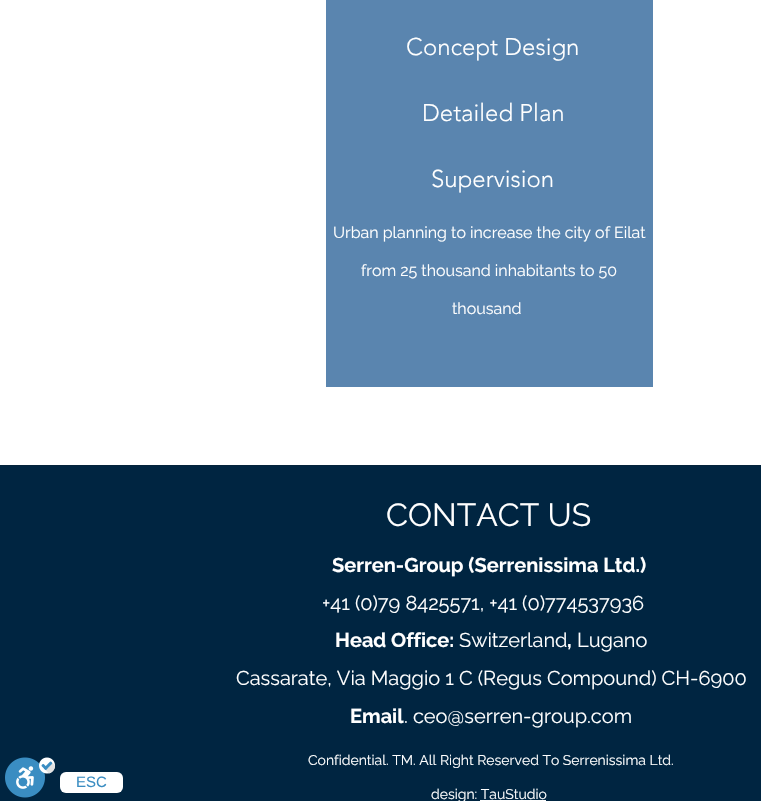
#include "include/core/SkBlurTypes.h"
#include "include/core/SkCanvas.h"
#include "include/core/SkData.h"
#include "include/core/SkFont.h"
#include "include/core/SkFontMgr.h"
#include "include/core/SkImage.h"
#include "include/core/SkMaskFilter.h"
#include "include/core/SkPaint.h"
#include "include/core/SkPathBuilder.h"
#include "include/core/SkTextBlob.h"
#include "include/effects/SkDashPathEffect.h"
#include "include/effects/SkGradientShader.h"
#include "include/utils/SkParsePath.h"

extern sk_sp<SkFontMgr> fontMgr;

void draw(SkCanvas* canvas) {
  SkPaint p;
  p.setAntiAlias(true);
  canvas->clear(SK_ColorWHITE);
  p.setColor(SkColorSetRGB(0, 37, 65));
  canvas->drawRect(SkRect::MakeLTRB(0, 466, 761, 801), p);
  canvas->drawImageRect(SkImages::DeferredFromEncodedData(SkData::MakeFromFileName("images/1.png")), SkRect::MakeLTRB(5, 757, 56, 798), SkSamplingOptions());
  p.setColor(SK_ColorWHITE);
  canvas->drawRoundRect(SkRect::MakeLTRB(60, 772, 123, 793), 6, 6, p);
  p.setColor(SkColorSetRGB(90, 133, 175));
  canvas->drawRect(SkRect::MakeLTRB(326, 0, 653, 387), p);
  p.setColor(SkColorSetRGB(4, 35, 59));
  canvas->drawRect(SkRect::MakeLTRB(0, 465, 761, 466), p);
  p.setColor(SK_ColorWHITE);
  canvas->drawRect(SkRect::MakeLTRB(480, 800, 546, 801), p);
  SkFont font1(fontMgr->matchFamilyStyle("Liberation Sans", SkFontStyle::Normal()), 15);
  font1.setSubpixel(true);
  p.setColor(SkColorSetRGB(58, 141, 194));
  canvas->drawString("ESC", 76, 787, font1, p);
  SkFont font2(fontMgr->matchFamilyStyle("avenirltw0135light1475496", SkFontStyle(300, SkFontStyle::kNormal_Width, SkFontStyle::kUpright_Slant)), 24);
  font2.setSubpixel(true);
  p.setColor(SK_ColorWHITE);
  canvas->drawString("Concept Design", 406, 55, font2, p);
  canvas->drawString("Detailed Plan", 422, 121, font2, p);
  canvas->drawString("Supervision", 431, 187, font2, p);
  SkFont font3(fontMgr->matchFamilyStyle("Raleway", SkFontStyle::Normal()), 16);
  font3.setSubpixel(true);
  canvas->drawString("Urban planning to increase the city of Eilat", 333, 238, font3, p);
  canvas->drawString("from 25 thousand inhabitants to 50", 361, 276, font3, p);
  canvas->drawString("thousand", 452, 314, font3, p);
  SkFont font4(fontMgr->matchFamilyStyle("Raleway", SkFontStyle::Normal()), 32);
  font4.setSubpixel(true);
  canvas->drawString("CONTACT US", 386, 526, font4, p);
  SkFont font5(fontMgr->matchFamilyStyle("Raleway", SkFontStyle::Bold()), 20);
  font5.setSubpixel(true);
  canvas->drawString("Serren-Group (Serrenissima Ltd.)", 332, 572, font5, p);
  SkFont font6(fontMgr->matchFamilyStyle("Raleway", SkFontStyle::Normal()), 20);
  font6.setSubpixel(true);
  canvas->drawString("+41 (0)79 8425571, +41 (0)774537936", 322, 610, font6, p);
  canvas->drawString("Head Office:", 335, 647, font5, p);
  canvas->drawString("Switzerland", 459, 647, font6, p);
  canvas->drawString(",", 567, 647, font5, p);
  canvas->drawString("Lugano", 577, 647, font6, p);
  canvas->drawString("Cassarate, Via Maggio 1 C (Regus Compound) CH-6900", 236, 685, font6, p);
  canvas->drawString("Email", 350, 723, font5, p);
  canvas->drawString(". ceo@serren-group.com", 404, 723, font6, p);
  SkFont font7(fontMgr->matchFamilyStyle("Raleway", SkFontStyle::Normal()), 14);
  font7.setSubpixel(true);
  canvas->drawString("Confidential. TM. All Right Reserved To Serrenissima Ltd.", 308, 765, font7, p);
  canvas->drawString("design: TauStudio", 431, 799, font7, p);
}
